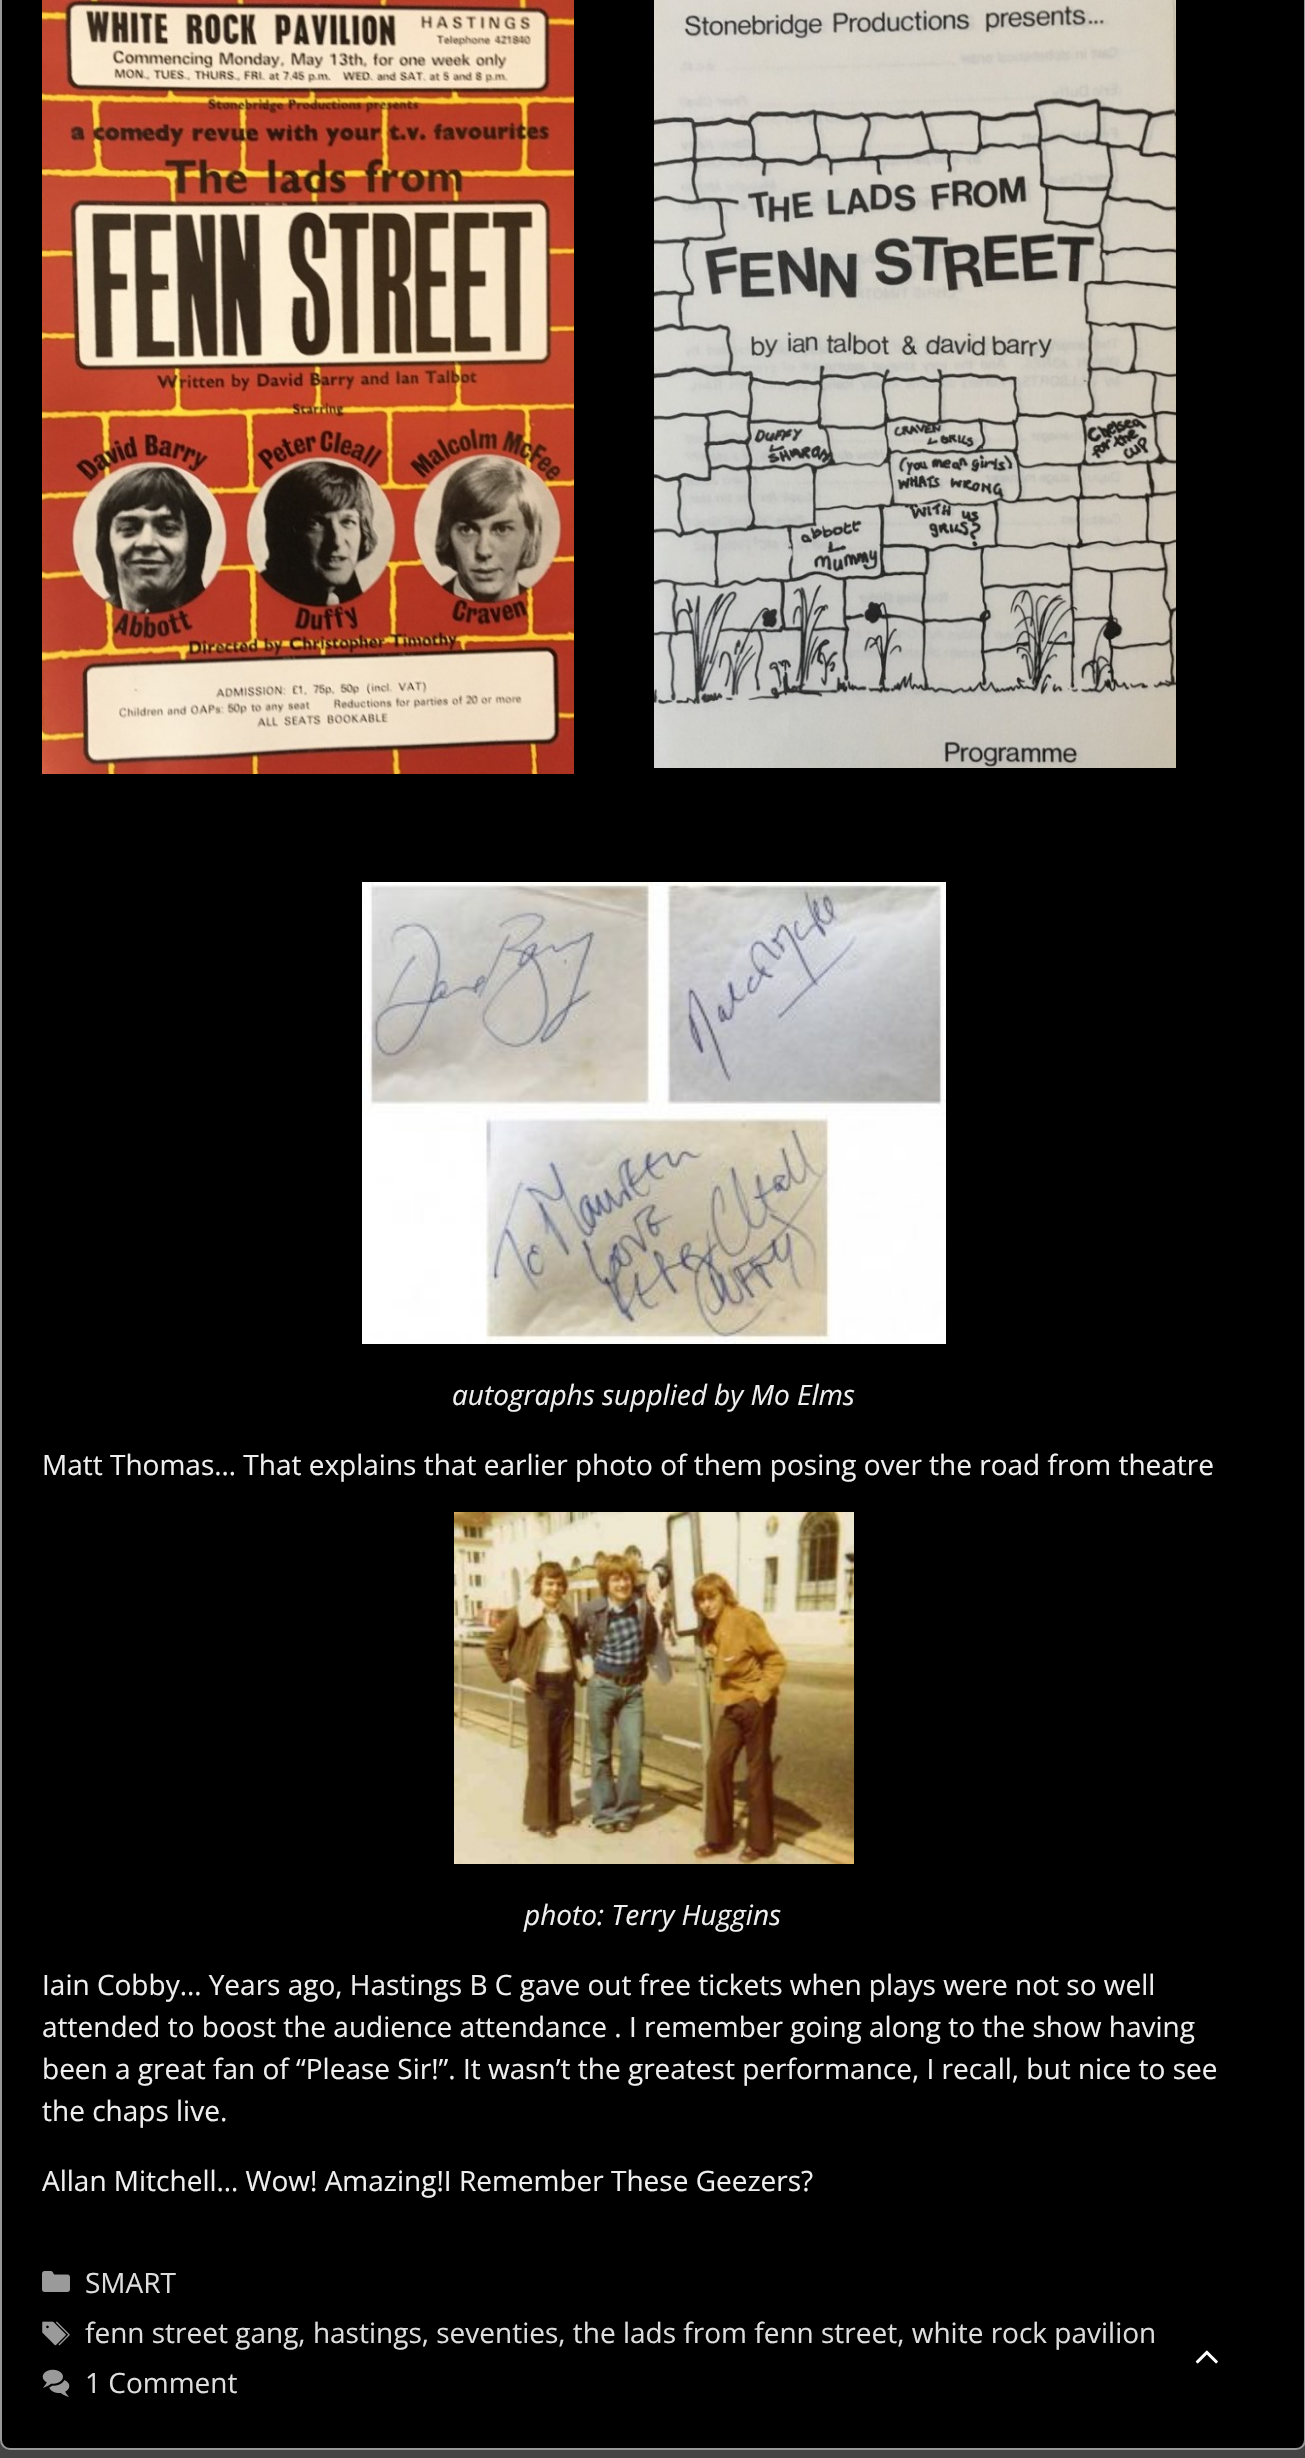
#include "include/core/SkBlurTypes.h"
#include "include/core/SkCanvas.h"
#include "include/core/SkData.h"
#include "include/core/SkFont.h"
#include "include/core/SkFontMgr.h"
#include "include/core/SkImage.h"
#include "include/core/SkMaskFilter.h"
#include "include/core/SkPaint.h"
#include "include/core/SkPathBuilder.h"
#include "include/core/SkTextBlob.h"
#include "include/effects/SkDashPathEffect.h"
#include "include/effects/SkGradientShader.h"
#include "include/utils/SkParsePath.h"

extern sk_sp<SkFontMgr> fontMgr;

void draw(SkCanvas* canvas) {
  SkPaint p;
  p.setAntiAlias(true);
  canvas->clear(SkColorSetRGB(68, 68, 68));
  p.setColor(SK_ColorBLACK);
  canvas->drawRoundRect(SkRect::MakeLTRB(1, -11, 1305, 2449), 9, 9, p);
  p.setStyle(SkPaint::kStroke_Style);
  p.setStrokeWidth(2);
  p.setColor(SkColorSetRGB(153, 153, 153));
  canvas->drawRoundRect(SkRect::MakeLTRB(1, -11, 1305, 2449), 9, 9, p);
  canvas->drawImageRect(SkImages::DeferredFromEncodedData(SkData::MakeFromFileName("images/1.png")), SkRect::MakeLTRB(42, 0, 574, 774), SkSamplingOptions());
  canvas->drawImageRect(SkImages::DeferredFromEncodedData(SkData::MakeFromFileName("images/2.png")), SkRect::MakeLTRB(654, 0, 1176, 768), SkSamplingOptions());
  canvas->drawImageRect(SkImages::DeferredFromEncodedData(SkData::MakeFromFileName("images/3.png")), SkRect::MakeLTRB(362, 882, 946, 1344), SkSamplingOptions());
  canvas->drawImageRect(SkImages::DeferredFromEncodedData(SkData::MakeFromFileName("images/4.png")), SkRect::MakeLTRB(454, 1512, 854, 1864), SkSamplingOptions());
  canvas->drawImageRect(SkImages::DeferredFromEncodedData(SkData::MakeFromFileName("images/5.png")), SkRect::MakeLTRB(42, 2271, 70, 2292), SkSamplingOptions());
  canvas->drawImageRect(SkImages::DeferredFromEncodedData(SkData::MakeFromFileName("images/6.png")), SkRect::MakeLTRB(42, 2321, 70, 2346), SkSamplingOptions());
  canvas->drawImageRect(SkImages::DeferredFromEncodedData(SkData::MakeFromFileName("images/7.png")), SkRect::MakeLTRB(42, 2369, 70, 2397), SkSamplingOptions());
  canvas->drawImageRect(SkImages::DeferredFromEncodedData(SkData::MakeFromFileName("images/8.png")), SkRect::MakeLTRB(1195, 2350, 1218, 2364), SkSamplingOptions());
  SkFont font1(fontMgr->matchFamilyStyle("Open Sans", SkFontStyle::Italic()), 28);
  font1.setSubpixel(true);
  p.setStyle(SkPaint::kFill_Style);
  p.setColor(SkColorSetRGB(239, 239, 239));
  canvas->drawString("autographs supplied by Mo Elms", 452, 1405, font1, p);
  SkFont font2(fontMgr->matchFamilyStyle("Open Sans", SkFontStyle::Normal()), 28);
  font2.setSubpixel(true);
  canvas->drawString("Matt Thomas… That explains that earlier photo of them posing over the road from theatre", 42, 1475, font2, p);
  canvas->drawString("photo: Terry Huggins", 524, 1925, font1, p);
  canvas->drawString("Iain Cobby… Years ago, Hastings B C gave out free tickets when plays were not so well", 42, 1995, font2, p);
  canvas->drawString("attended to boost the audience attendance . I remember going along to the show having", 42, 2037, font2, p);
  canvas->drawString("been a great fan of “Please Sir!”. It wasn’t the greatest performance, I recall, but nice to see", 42, 2079, font2, p);
  canvas->drawString("the chaps live.", 42, 2121, font2, p);
  canvas->drawString("Allan Mitchell… Wow! Amazing!I Remember These Geezers?", 42, 2191, font2, p);
  p.setColor(SkColorSetRGB(221, 221, 221));
  canvas->drawString("SMART", 85, 2293, font2, p);
  canvas->drawString("fenn street gang, hastings, seventies, the lads from fenn street, white rock pavilion", 85, 2343, font2, p);
  canvas->drawString("1 Comment", 85, 2393, font2, p);
}
